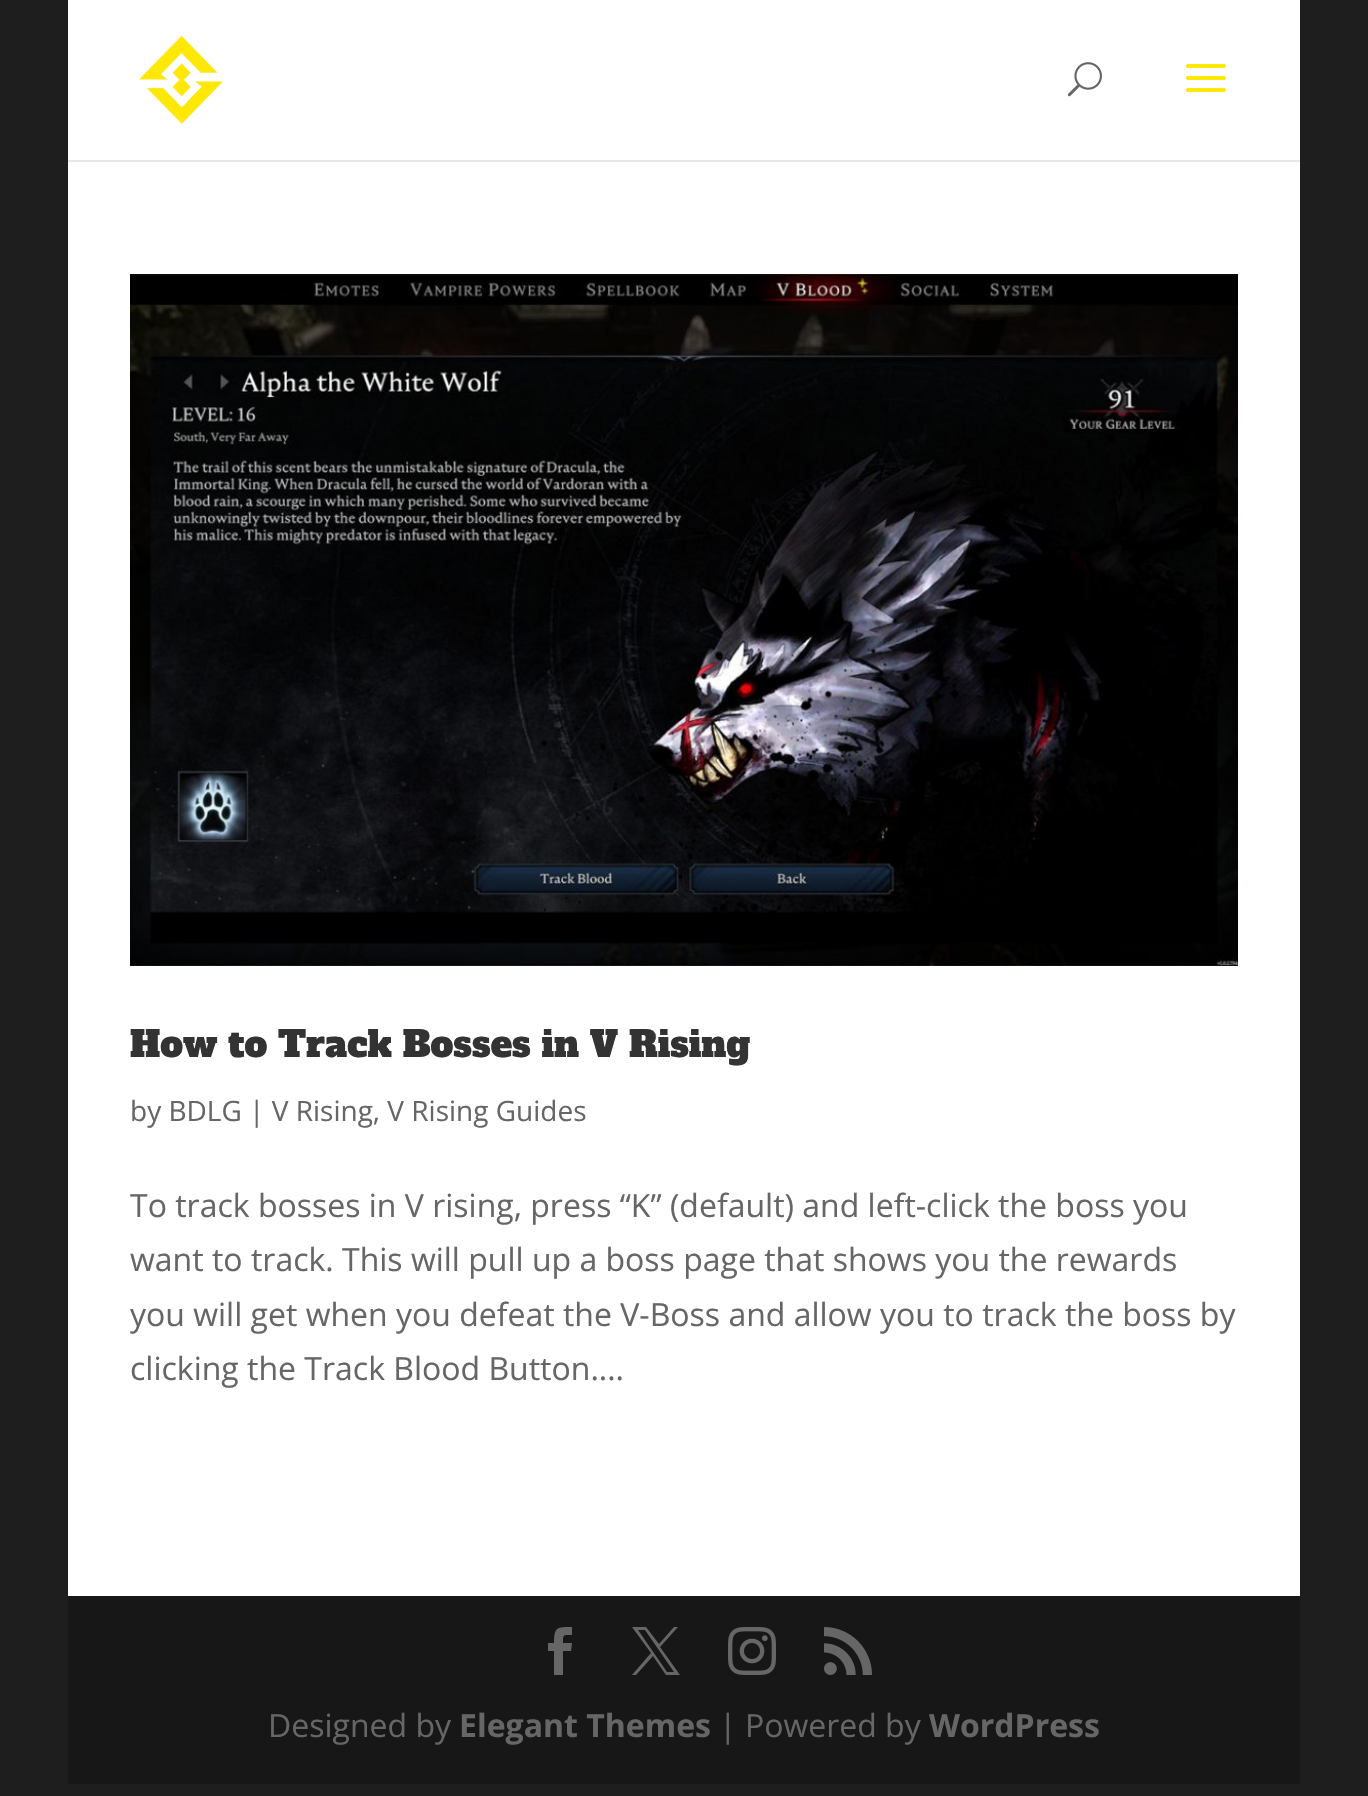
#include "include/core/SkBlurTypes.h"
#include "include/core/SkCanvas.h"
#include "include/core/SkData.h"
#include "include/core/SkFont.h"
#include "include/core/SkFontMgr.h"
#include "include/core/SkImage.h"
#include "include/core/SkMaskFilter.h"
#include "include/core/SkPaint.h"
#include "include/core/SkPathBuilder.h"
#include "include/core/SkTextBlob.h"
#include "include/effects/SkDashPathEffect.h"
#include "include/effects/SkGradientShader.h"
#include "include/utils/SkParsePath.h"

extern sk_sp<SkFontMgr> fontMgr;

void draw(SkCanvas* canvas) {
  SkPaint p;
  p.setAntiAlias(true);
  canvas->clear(SkColorSetRGB(30, 30, 30));
  p.setColor(SkColorSetRGB(230, 230, 230));
  canvas->drawRect(SkRect::MakeLTRB(68, 160, 1300, 162), p);
  p.setColor(SK_ColorWHITE);
  canvas->drawRect(SkRect::MakeLTRB(68, 0, 1300, 160), p);
  canvas->drawImageRect(SkImages::DeferredFromEncodedData(SkData::MakeFromFileName("images/1.png")), SkRect::MakeLTRB(139, 36, 223, 124), SkSamplingOptions());
  canvas->drawImageRect(SkImages::DeferredFromEncodedData(SkData::MakeFromFileName("images/2.png")), SkRect::MakeLTRB(1067, 62, 1102, 97), SkSamplingOptions());
  canvas->drawImageRect(SkImages::DeferredFromEncodedData(SkData::MakeFromFileName("images/3.png")), SkRect::MakeLTRB(1186, 64, 1226, 92), SkSamplingOptions());
  canvas->drawRect(SkRect::MakeLTRB(68, 162, 1300, 1596), p);
  canvas->drawImageRect(SkImages::DeferredFromEncodedData(SkData::MakeFromFileName("images/4.png")), SkRect::MakeLTRB(130, 274, 1238, 966), SkSamplingOptions());
  p.setColor(SkColorSetRGB(23, 23, 23));
  canvas->drawRect(SkRect::MakeLTRB(68, 1596, 1300, 1784), p);
  p.setColor(SkColorSetRGB(102, 102, 102));
  canvas->drawPath(SkPathBuilder().moveTo(554, 1675).lineTo(563, 1675).lineTo(563, 1651).lineTo(571, 1651).lineTo(572, 1643).lineTo(563, 1643).cubicTo(563, 1634, 563, 1635, 572, 1635).lineTo(572, 1627).cubicTo(557, 1627, 554, 1627, 554, 1643).lineTo(548, 1643).lineTo(548, 1651).lineTo(554, 1651).close().detach(), p);
  canvas->drawPath(SkPathBuilder().moveTo(632, 1627).lineTo(651, 1653).lineTo(632, 1675).lineTo(636, 1675).lineTo(653, 1656).lineTo(666, 1675).lineTo(680, 1675).lineTo(660, 1647).lineTo(678, 1627).lineTo(674, 1627).lineTo(659, 1644).lineTo(646, 1627).close().moveTo(638, 1630).lineTo(645, 1630).lineTo(674, 1672).lineTo(667, 1672).close().detach(), p);
  canvas->drawImageRect(SkImages::DeferredFromEncodedData(SkData::MakeFromFileName("images/5.png")), SkRect::MakeLTRB(728, 1627, 776, 1675), SkSamplingOptions());
  canvas->drawImageRect(SkImages::DeferredFromEncodedData(SkData::MakeFromFileName("images/6.png")), SkRect::MakeLTRB(824, 1627, 872, 1675), SkSamplingOptions());
  SkFont font1(fontMgr->matchFamilyStyle("Alfa Slab One", SkFontStyle::Normal()), 36);
  font1.setSubpixel(true);
  p.setColor(SkColorSetRGB(51, 51, 51));
  canvas->drawString("How to Track Bosses in V Rising", 130, 1057, font1, p);
  SkFont font2(fontMgr->matchFamilyStyle("Open Sans", SkFontStyle::Normal()), 28);
  font2.setSubpixel(true);
  p.setColor(SkColorSetRGB(102, 102, 102));
  canvas->drawString("by BDLG | V Rising, V Rising Guides", 130, 1121, font2, p);
  SkFont font3(fontMgr->matchFamilyStyle("Open Sans", SkFontStyle::Normal()), 32);
  font3.setSubpixel(true);
  canvas->drawString("To track bosses in V rising, press “K” (default) and left-click the boss you", 130, 1217, font3, p);
  canvas->drawString("want to track. This will pull up a boss page that shows you the rewards", 130, 1271, font3, p);
  canvas->drawString("you will get when you defeat the V-Boss and allow you to track the boss by", 130, 1326, font3, p);
  canvas->drawString("clicking the Track Blood Button....", 130, 1380, font3, p);
  canvas->drawString("Designed by", 268, 1737, font3, p);
  SkFont font4(fontMgr->matchFamilyStyle("Open Sans", SkFontStyle::Bold()), 32);
  font4.setSubpixel(true);
  canvas->drawString("Elegant Themes", 459, 1737, font4, p);
  canvas->drawString("| Powered by", 719, 1737, font3, p);
  canvas->drawString("WordPress", 929, 1737, font4, p);
}
